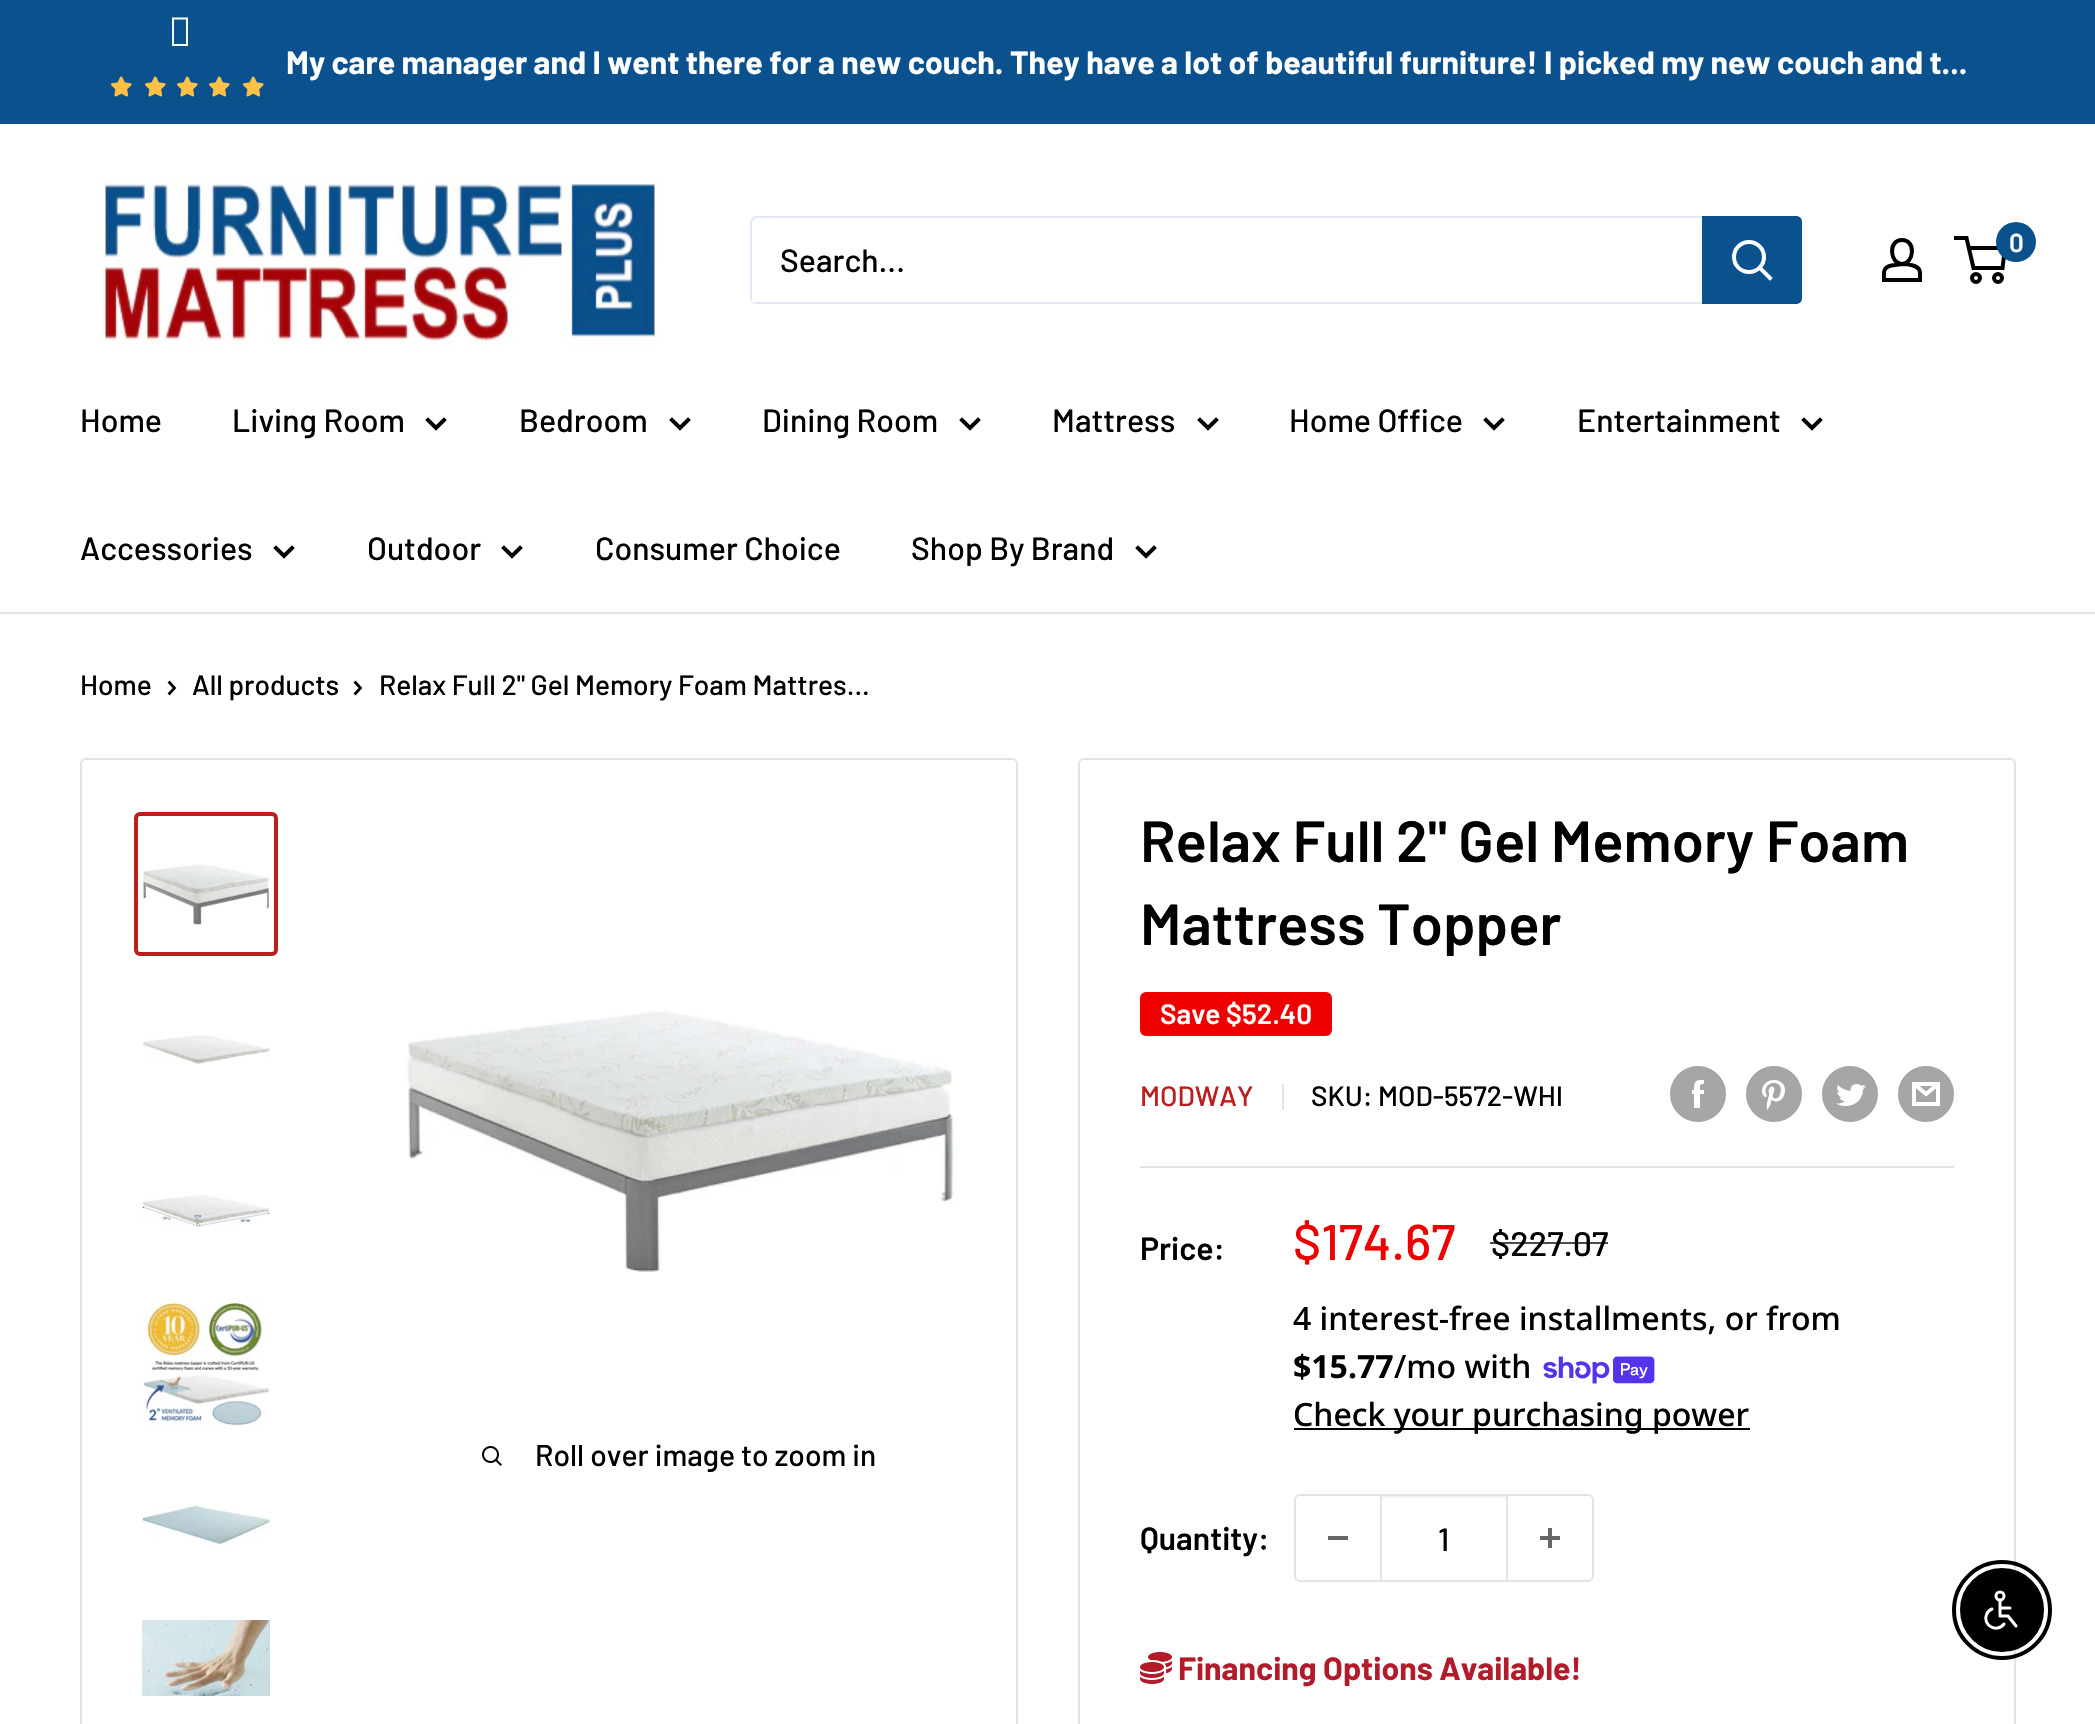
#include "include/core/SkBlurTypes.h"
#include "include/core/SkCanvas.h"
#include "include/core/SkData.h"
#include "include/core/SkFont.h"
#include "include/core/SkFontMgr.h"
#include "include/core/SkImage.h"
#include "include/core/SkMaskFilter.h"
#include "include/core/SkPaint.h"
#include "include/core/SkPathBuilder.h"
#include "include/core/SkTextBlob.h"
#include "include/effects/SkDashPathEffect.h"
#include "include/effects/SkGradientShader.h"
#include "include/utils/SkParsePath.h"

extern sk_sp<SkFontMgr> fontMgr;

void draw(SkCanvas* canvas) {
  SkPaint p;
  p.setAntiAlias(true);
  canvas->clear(SK_ColorWHITE);
  p.setColor(SkColorSetRGB(10, 81, 141));
  canvas->drawRect(SkRect::MakeLTRB(0, 0, 2095, 124), p);
  p.setColor(SK_ColorWHITE);
  canvas->drawPath(SkPathBuilder().moveTo(172, 46).lineTo(172, 17.5f).lineTo(188, 17.5f).lineTo(188, 46).close().moveTo(174, 44).lineTo(186, 44).lineTo(186, 19.5f).lineTo(174, 19.5f).close().detach(), p);
  canvas->drawImageRect(SkImages::DeferredFromEncodedData(SkData::MakeFromFileName("images/1.png")), SkRect::MakeLTRB(111, 76, 132, 97), SkSamplingOptions());
  canvas->drawImageRect(SkImages::DeferredFromEncodedData(SkData::MakeFromFileName("images/1.png")), SkRect::MakeLTRB(145, 76, 166, 97), SkSamplingOptions());
  canvas->drawImageRect(SkImages::DeferredFromEncodedData(SkData::MakeFromFileName("images/1.png")), SkRect::MakeLTRB(177, 76, 198, 97), SkSamplingOptions());
  canvas->drawImageRect(SkImages::DeferredFromEncodedData(SkData::MakeFromFileName("images/1.png")), SkRect::MakeLTRB(209, 76, 230, 97), SkSamplingOptions());
  canvas->drawImageRect(SkImages::DeferredFromEncodedData(SkData::MakeFromFileName("images/1.png")), SkRect::MakeLTRB(243, 76, 264, 97), SkSamplingOptions());
  canvas->drawImageRect(SkImages::DeferredFromEncodedData(SkData::MakeFromFileName("images/2.png")), SkRect::MakeLTRB(102, 176, 657, 345), SkSamplingOptions());
  p.setStyle(SkPaint::kStroke_Style);
  p.setStrokeWidth(4);
  p.setColor(SK_ColorBLACK);
  canvas->drawPath(SkPathBuilder().moveTo(1902, 264).cubicTo(1906, 264, 1909.5f, 264.5f, 1913, 265.5f).cubicTo(1921.5f, 268, 1920, 272.5f, 1920, 280).lineTo(1884, 280).cubicTo(1884, 272, 1882.5f, 267.5f, 1891.5f, 265.5f).close().moveTo(1902, 264).cubicTo(1890, 264, 1887.5f, 240, 1902, 240).cubicTo(1916.5f, 240, 1914, 264, 1902, 264).close().detach(), p);
  canvas->drawCircle(1976, 278, 4, p);
  canvas->drawCircle(1998, 278, 4, p);
  canvas->drawPath(SkPathBuilder().moveTo(1968.5f, 248).lineTo(2005, 248).lineTo(2002.5f, 268).lineTo(1973.5f, 268).lineTo(1966.5f, 238).lineTo(1954, 238).detach(), p);
  p.setStyle(SkPaint::kFill_Style);
  p.setColor(SkColorSetRGB(10, 81, 141));
  canvas->drawCircle(2016, 242, 20, p);
  p.setColor(SkColorSetRGB(227, 231, 250));
  canvas->drawPath(SkPathBuilder().moveTo(751, 301).cubicTo(752, 303, 754, 304, 756, 304).lineTo(1796, 304).cubicTo(1799, 304, 1802, 301, 1802, 298).lineTo(1802, 222).cubicTo(1802, 220, 1801, 218, 1799, 217).cubicTo(1800, 218, 1800, 219, 1800, 220).lineTo(1800, 296).cubicTo(1800, 299, 1797, 302, 1794, 302).lineTo(754, 302).cubicTo(753, 302, 752, 302, 751, 301).close().detach(), p);
  p.setColor(SkColorSetARGB(77, 163, 175, 239));
  canvas->drawPath(SkPathBuilder().moveTo(758, 218).lineTo(1798, 218).lineTo(1801, 219).cubicTo(1800, 217, 1798, 216, 1796, 216).lineTo(756, 216).cubicTo(753, 216, 750, 219, 750, 222).lineTo(750, 298).cubicTo(750, 300, 751, 302, 753, 303).cubicTo(752, 302, 752, 301, 752, 300).lineTo(752, 224).cubicTo(752, 221, 755, 218, 758, 218).close().detach(), p);
  p.setColor(SkColorSetRGB(10, 81, 141));
  canvas->drawPath(SkPathBuilder().moveTo(1702, 216).lineTo(1796, 216).cubicTo(1799.5f, 216, 1802, 218.5f, 1802, 222).lineTo(1802, 298).cubicTo(1802, 301.5f, 1799.5f, 304, 1796, 304).lineTo(1702, 304).close().detach(), p);
  p.setStyle(SkPaint::kStroke_Style);
  p.setStrokeCap(SkPaint::kSquare_Cap);
  p.setColor(SK_ColorWHITE);
  canvas->drawPath(SkPathBuilder().moveTo(1770, 278).lineTo(1760, 268).detach(), p);
  p.setStrokeCap(SkPaint::kButt_Cap);
  canvas->drawCircle(1749, 257, 15, p);
  p.setStyle(SkPaint::kFill_Style);
  p.setColor(SkColorSetRGB(225, 227, 228));
  canvas->drawRect(SkRect::MakeLTRB(0, 612, 2095, 614), p);
  p.setStyle(SkPaint::kStroke_Style);
  p.setStrokeCap(SkPaint::kSquare_Cap);
  p.setColor(SK_ColorBLACK);
  canvas->drawPath(SkPathBuilder().moveTo(444, 420).lineTo(436, 428).lineTo(428, 420).detach(), p);
  canvas->drawPath(SkPathBuilder().moveTo(688, 420).lineTo(680, 428).lineTo(672, 420).detach(), p);
  canvas->drawPath(SkPathBuilder().moveTo(978, 420).lineTo(970, 428).lineTo(962, 420).detach(), p);
  canvas->drawPath(SkPathBuilder().moveTo(1216, 420).lineTo(1208, 428).lineTo(1200, 420).detach(), p);
  canvas->drawPath(SkPathBuilder().moveTo(1502, 420).lineTo(1494, 428).lineTo(1486, 420).detach(), p);
  canvas->drawPath(SkPathBuilder().moveTo(1820, 420).lineTo(1812, 428).lineTo(1804, 420).detach(), p);
  canvas->drawPath(SkPathBuilder().moveTo(292, 548).lineTo(284, 556).lineTo(276, 548).detach(), p);
  canvas->drawPath(SkPathBuilder().moveTo(520, 548).lineTo(512, 556).lineTo(504, 548).detach(), p);
  canvas->drawPath(SkPathBuilder().moveTo(1154, 548).lineTo(1146, 556).lineTo(1138, 548).detach(), p);
  p.setStrokeWidth(2.7f);
  canvas->drawPath(SkPathBuilder().moveTo(169.5f, 682.5f).lineTo(174.5f, 688).lineTo(169.5f, 693.5f).detach(), p);
  canvas->drawPath(SkPathBuilder().moveTo(355.5f, 682.5f).lineTo(360.5f, 688).lineTo(355.5f, 693.5f).detach(), p);
  p.setStrokeWidth(2);
  p.setStrokeCap(SkPaint::kButt_Cap);
  p.setColor(SkColorSetRGB(225, 227, 228));
  canvas->drawRoundRect(SkRect::MakeLTRB(81, 759, 1017, 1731), 5, 5, p);
  p.setStrokeWidth(4);
  p.setColor(SkColorSetRGB(188, 29, 29));
  canvas->drawRoundRect(SkRect::MakeLTRB(136, 814, 276, 954), 4, 4, p);
  canvas->drawImageRect(SkImages::DeferredFromEncodedData(SkData::MakeFromFileName("images/3.png")), SkRect::MakeLTRB(142, 864, 270, 925), SkSamplingOptions());
  canvas->drawImageRect(SkImages::DeferredFromEncodedData(SkData::MakeFromFileName("images/4.png")), SkRect::MakeLTRB(142, 1035, 270, 1064), SkSamplingOptions());
  canvas->drawImageRect(SkImages::DeferredFromEncodedData(SkData::MakeFromFileName("images/5.png")), SkRect::MakeLTRB(142, 1195, 270, 1227), SkSamplingOptions());
  canvas->drawImageRect(SkImages::DeferredFromEncodedData(SkData::MakeFromFileName("images/6.png")), SkRect::MakeLTRB(142, 1300, 270, 1426), SkSamplingOptions());
  canvas->drawImageRect(SkImages::DeferredFromEncodedData(SkData::MakeFromFileName("images/7.png")), SkRect::MakeLTRB(142, 1504, 270, 1546), SkSamplingOptions());
  canvas->drawImageRect(SkImages::DeferredFromEncodedData(SkData::MakeFromFileName("images/8.png")), SkRect::MakeLTRB(142, 1620, 270, 1696), SkSamplingOptions());
  canvas->drawImageRect(SkImages::DeferredFromEncodedData(SkData::MakeFromFileName("images/9.png")), SkRect::MakeLTRB(403, 1011, 957, 1272), SkSamplingOptions());
  canvas->drawImageRect(SkImages::DeferredFromEncodedData(SkData::MakeFromFileName("images/10.png")), SkRect::MakeLTRB(482, 1446, 502, 1466), SkSamplingOptions());
  p.setStrokeWidth(2);
  p.setColor(SkColorSetRGB(225, 227, 228));
  canvas->drawRoundRect(SkRect::MakeLTRB(1079, 759, 2015, 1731), 5, 5, p);
  p.setStyle(SkPaint::kFill_Style);
  p.setColor(SkColorSetRGB(238, 0, 0));
  canvas->drawRoundRect(SkRect::MakeLTRB(1140, 992, 1332, 1036), 6, 6, p);
  p.setColor(SkColorSetRGB(225, 227, 228));
  canvas->drawRect(SkRect::MakeLTRB(1282, 1084, 1284, 1110), p);
  canvas->drawImageRect(SkImages::DeferredFromEncodedData(SkData::MakeFromFileName("images/11.png")), SkRect::MakeLTRB(1670, 1066, 1726, 1122), SkSamplingOptions());
  canvas->drawImageRect(SkImages::DeferredFromEncodedData(SkData::MakeFromFileName("images/12.png")), SkRect::MakeLTRB(1746, 1066, 1802, 1122), SkSamplingOptions());
  canvas->drawImageRect(SkImages::DeferredFromEncodedData(SkData::MakeFromFileName("images/13.png")), SkRect::MakeLTRB(1822, 1066, 1878, 1122), SkSamplingOptions());
  canvas->drawImageRect(SkImages::DeferredFromEncodedData(SkData::MakeFromFileName("images/14.png")), SkRect::MakeLTRB(1898, 1066, 1954, 1122), SkSamplingOptions());
  canvas->drawRect(SkRect::MakeLTRB(1140, 1166, 1954, 1168), p);
  canvas->drawImageRect(SkImages::DeferredFromEncodedData(SkData::MakeFromFileName("images/15.png")), SkRect::MakeLTRB(1543, 1356, 1655, 1384), SkSamplingOptions());
  p.setColor(SK_ColorBLACK);
  canvas->drawRect(SkRect::MakeLTRB(1294, 1428, 1750, 1430), p);
  p.setStyle(SkPaint::kStroke_Style);
  p.setColor(SkColorSetRGB(225, 227, 228));
  canvas->drawRoundRect(SkRect::MakeLTRB(1295, 1495, 1593, 1581), 5, 5, p);
  p.setStyle(SkPaint::kFill_Style);
  p.setColor(SkColorSetRGB(102, 102, 102));
  canvas->drawRect(SkRect::MakeLTRB(1328, 1536, 1348, 1540), p);
  p.setColor(SkColorSetRGB(243, 244, 244));
  canvas->drawRect(SkRect::MakeLTRB(1382, 1496, 1506, 1498), p);
  p.setColor(SkColorSetRGB(225, 227, 228));
  canvas->drawRect(SkRect::MakeLTRB(1506, 1496, 1508, 1580), p);
  canvas->drawRect(SkRect::MakeLTRB(1380, 1496, 1382, 1580), p);
  canvas->drawImageRect(SkImages::DeferredFromEncodedData(SkData::MakeFromFileName("images/16.png")), SkRect::MakeLTRB(1540, 1528, 1560, 1548), SkSamplingOptions());
  canvas->drawImageRect(SkImages::DeferredFromEncodedData(SkData::MakeFromFileName("images/17.png")), SkRect::MakeLTRB(1140, 1652, 1172, 1684), SkSamplingOptions());
  p.setStyle(SkPaint::kStroke_Style);
  p.setStrokeWidth(4);
  p.setColor(SK_ColorBLACK);
  canvas->drawCircle(2002, 1610, 48, p);
  p.setStyle(SkPaint::kFill_Style);
  canvas->drawCircle(2002, 1610, 41, p);
  p.setStyle(SkPaint::kStroke_Style);
  p.setStrokeWidth(2);
  canvas->drawCircle(2002, 1610, 41, p);
  p.setStrokeWidth(3);
  p.setColor(SK_ColorWHITE);
  canvas->drawCircle(2000, 1596, 4, p);
  p.setStrokeCap(SkPaint::kRound_Cap);
  p.setStrokeJoin(SkPaint::kRound_Join);
  canvas->drawPath(SkPathBuilder().moveTo(2000, 1600).lineTo(2000, 1616).lineTo(2008, 1616).lineTo(2016, 1626).moveTo(2000, 1608).lineTo(2010, 1608).moveTo(1992, 1609).cubicTo(1989.5f, 1610, 1987.5f, 1612, 1986.5f, 1614.5f).cubicTo(1982, 1625, 1997, 1633.5f, 2004, 1624).detach(), p);
  SkFont font1(fontMgr->matchFamilyStyle("Barlow", SkFontStyle::Bold()), 32);
  font1.setSubpixel(true);
  p.setStyle(SkPaint::kFill_Style);
  canvas->drawString("My care manager and I went there for a new couch. They have a lot of beautiful furniture! I picked my new couch and t...", 286, 74, font1, p);
  SkFont font2(fontMgr->matchFamilyStyle("Barlow", SkFontStyle(600, SkFontStyle::kNormal_Width, SkFontStyle::kUpright_Slant)), 26);
  font2.setSubpixel(true);
  canvas->drawString("0", 2009, 252, font2, p);
  SkFont font3(fontMgr->matchFamilyStyle("Barlow", SkFontStyle(500, SkFontStyle::kNormal_Width, SkFontStyle::kUpright_Slant)), 32);
  font3.setSubpixel(true);
  p.setColor(SK_ColorBLACK);
  canvas->drawString("Search...", 780, 272, font3, p);
  canvas->drawString("Home", 80, 432, font3, p);
  canvas->drawString("Living Room", 232, 432, font3, p);
  canvas->drawString("Bedroom", 519, 432, font3, p);
  canvas->drawString("Dining Room", 762, 432, font3, p);
  canvas->drawString("Mattress", 1052, 432, font3, p);
  canvas->drawString("Home Office", 1289, 432, font3, p);
  canvas->drawString("Entertainment", 1577, 432, font3, p);
  canvas->drawString("Accessories", 80, 560, font3, p);
  canvas->drawString("Outdoor", 367, 560, font3, p);
  canvas->drawString("Consumer Choice", 595, 560, font3, p);
  canvas->drawString("Shop By Brand", 911, 560, font3, p);
  SkFont font4(fontMgr->matchFamilyStyle("Barlow", SkFontStyle(500, SkFontStyle::kNormal_Width, SkFontStyle::kUpright_Slant)), 28);
  font4.setSubpixel(true);
  canvas->drawString("Home", 80, 695, font4, p);
  canvas->drawString("All products", 192, 695, font4, p);
  canvas->drawString("Relax Full 2\" Gel Memory Foam Mattres...", 379, 695, font4, p);
  SkFont font5(fontMgr->matchFamilyStyle("Barlow", SkFontStyle(500, SkFontStyle::kNormal_Width, SkFontStyle::kUpright_Slant)), 30);
  font5.setSubpixel(true);
  canvas->drawString("Roll over image to zoom in", 535, 1466, font5, p);
  SkFont font6(fontMgr->matchFamilyStyle("Barlow", SkFontStyle(600, SkFontStyle::kNormal_Width, SkFontStyle::kUpright_Slant)), 58);
  font6.setSubpixel(true);
  canvas->drawString("Relax Full 2\" Gel Memory Foam", 1140, 862, font6, p);
  canvas->drawString("Mattress Topper", 1140, 945, font6, p);
  SkFont font7(fontMgr->matchFamilyStyle("Barlow", SkFontStyle(600, SkFontStyle::kNormal_Width, SkFontStyle::kUpright_Slant)), 28);
  font7.setSubpixel(true);
  p.setColor(SK_ColorWHITE);
  canvas->drawString("Save $52.40", 1160, 1024, font7, p);
  p.setColor(SkColorSetRGB(188, 29, 29));
  canvas->drawString("MODWAY", 1140, 1106, font4, p);
  p.setColor(SK_ColorBLACK);
  canvas->drawString("SKU: MOD-5572-WHI", 1311, 1106, font4, p);
  SkFont font8(fontMgr->matchFamilyStyle("Barlow", SkFontStyle(600, SkFontStyle::kNormal_Width, SkFontStyle::kUpright_Slant)), 32);
  font8.setSubpixel(true);
  canvas->drawString("Price:", 1140, 1260, font8, p);
  SkFont font9(fontMgr->matchFamilyStyle("Barlow", SkFontStyle(500, SkFontStyle::kNormal_Width, SkFontStyle::kUpright_Slant)), 50);
  font9.setSubpixel(true);
  p.setColor(SkColorSetRGB(238, 0, 0));
  canvas->drawString("$174.67", 1293, 1260, font9, p);
  SkFont font10(fontMgr->matchFamilyStyle("Barlow", SkFontStyle(500, SkFontStyle::kNormal_Width, SkFontStyle::kUpright_Slant)), 34);
  font10.setSubpixel(true);
  p.setColor(SK_ColorBLACK);
  canvas->drawString("$227.07", 1491, 1256, font10, p);
  p.setColor(SkColorSetARGB(179, 0, 0, 0));
  canvas->drawRect(SkRect::MakeLTRB(1490, 1242, 1608, 1244), p);
  SkFont font11(fontMgr->matchFamilyStyle("Noto Sans", SkFontStyle(500, SkFontStyle::kNormal_Width, SkFontStyle::kUpright_Slant)), 32);
  font11.setSubpixel(true);
  p.setColor(SK_ColorBLACK);
  canvas->drawString("4 interest-free installments, or from", 1293, 1330, font11, p);
  SkFont font12(fontMgr->matchFamilyStyle("Noto Sans", SkFontStyle::Bold()), 32);
  font12.setSubpixel(true);
  canvas->drawString("$15.77", 1293, 1378, font12, p);
  canvas->drawString("/mo with", 1394, 1378, font11, p);
  canvas->drawString("Check your purchasing power", 1293, 1426, font11, p);
  canvas->drawString("Quantity:", 1140, 1550, font8, p);
  canvas->drawString("1", 1438, 1551, font3, p);
  p.setColor(SkColorSetRGB(177, 27, 42));
  canvas->drawString("Financing Options Available!", 1178, 1680, font1, p);
}
